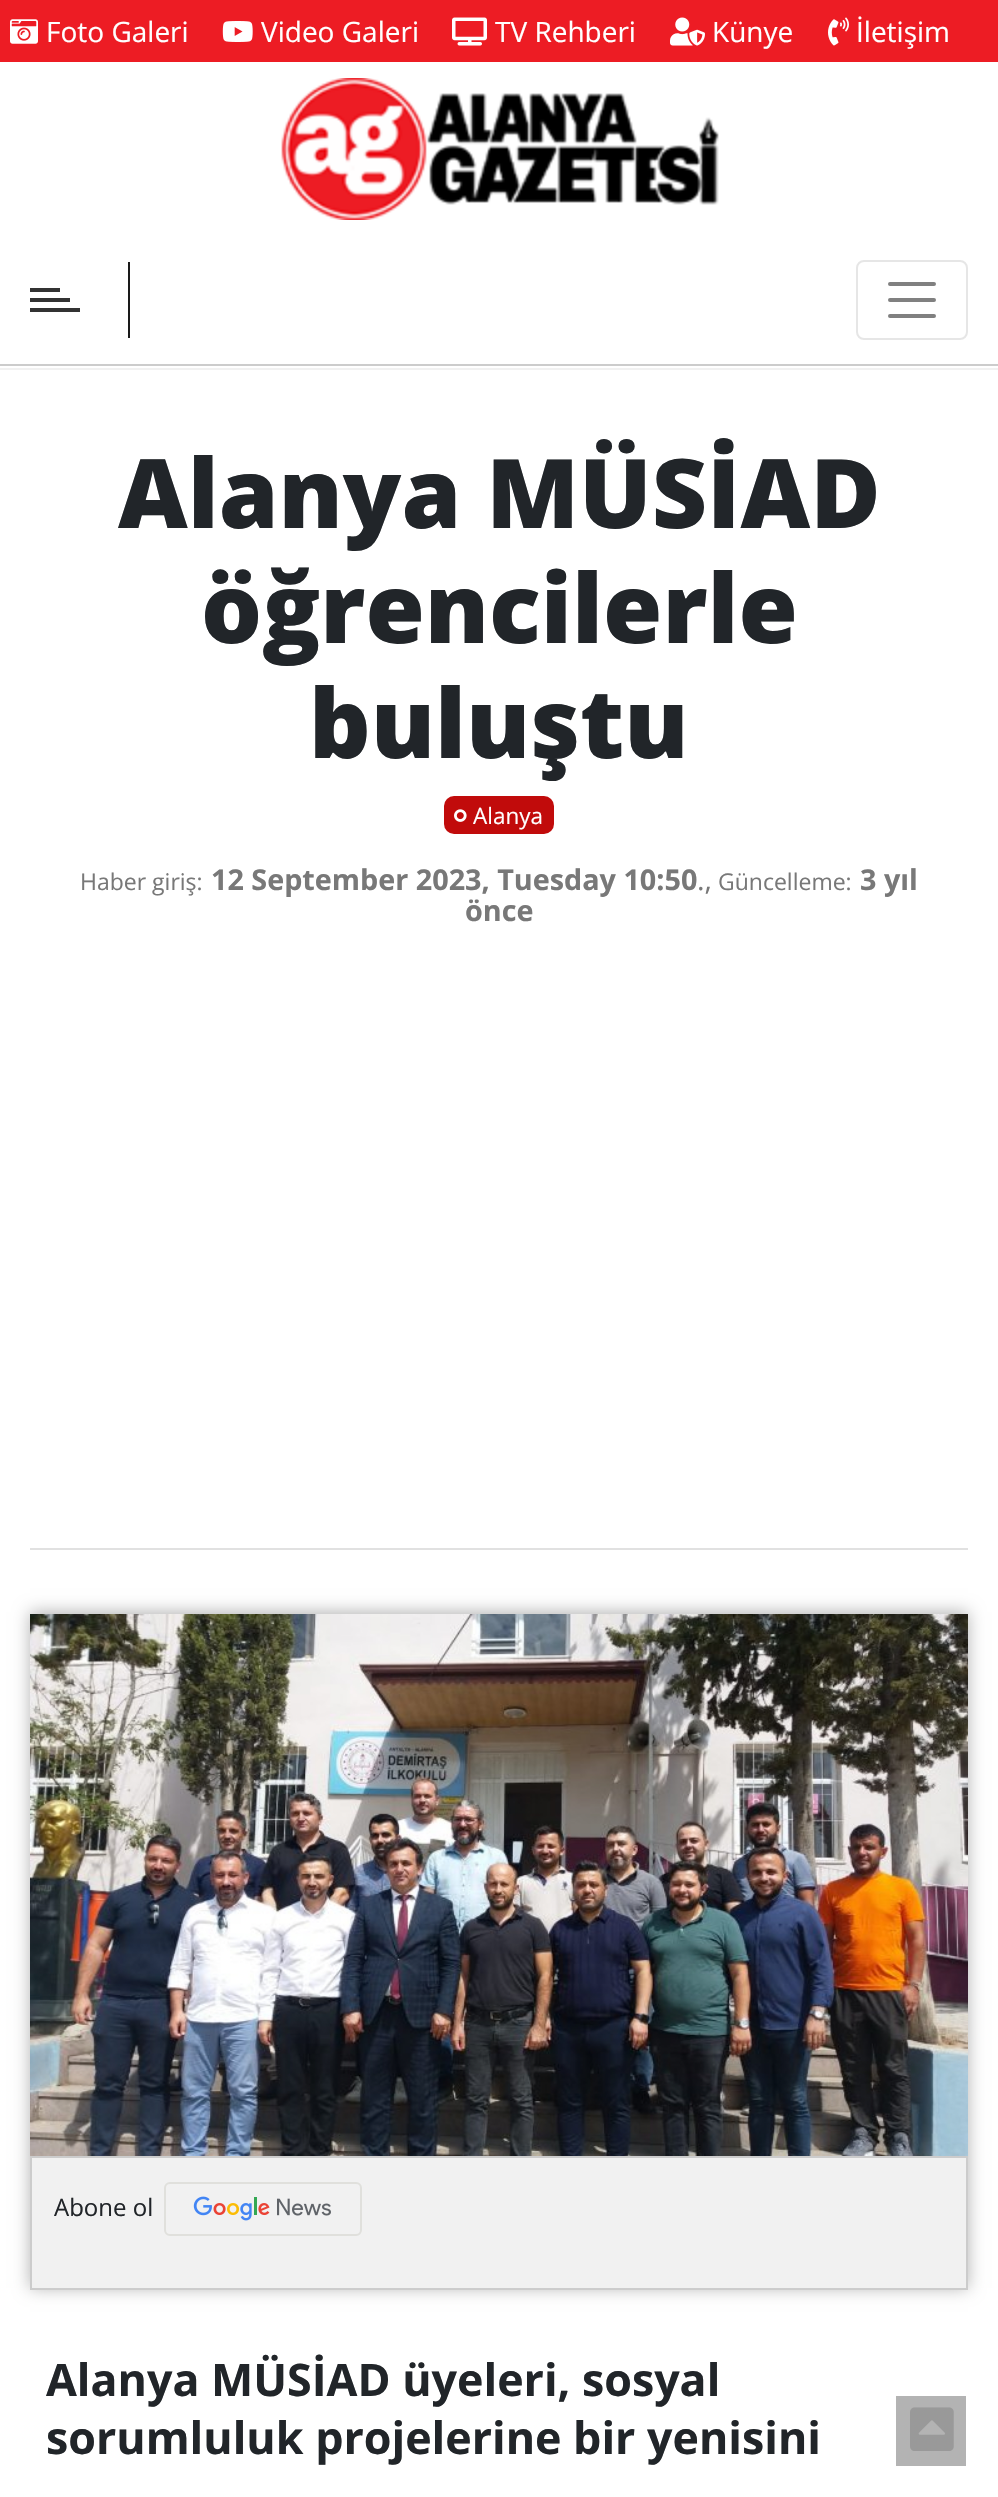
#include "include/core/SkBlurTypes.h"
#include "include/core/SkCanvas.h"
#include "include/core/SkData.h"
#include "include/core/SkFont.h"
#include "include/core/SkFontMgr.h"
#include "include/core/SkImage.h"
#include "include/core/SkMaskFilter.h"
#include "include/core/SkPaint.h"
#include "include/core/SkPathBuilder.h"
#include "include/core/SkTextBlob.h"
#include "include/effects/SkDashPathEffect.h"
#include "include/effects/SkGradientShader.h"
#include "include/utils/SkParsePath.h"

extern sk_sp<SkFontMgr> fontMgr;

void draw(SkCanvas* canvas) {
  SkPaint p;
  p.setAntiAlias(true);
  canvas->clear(SK_ColorWHITE);
  p.setColor(SkColorSetRGB(237, 28, 36));
  canvas->drawRect(SkRect::MakeLTRB(0, 0, 998, 62), p);
  canvas->drawImageRect(SkImages::DeferredFromEncodedData(SkData::MakeFromFileName("images/1.png")), SkRect::MakeLTRB(10, 19, 38, 44), SkSamplingOptions());
  canvas->drawImageRect(SkImages::DeferredFromEncodedData(SkData::MakeFromFileName("images/2.png")), SkRect::MakeLTRB(222, 21, 253, 42), SkSamplingOptions());
  canvas->drawImageRect(SkImages::DeferredFromEncodedData(SkData::MakeFromFileName("images/3.png")), SkRect::MakeLTRB(452, 17, 487, 46), SkSamplingOptions());
  canvas->drawImageRect(SkImages::DeferredFromEncodedData(SkData::MakeFromFileName("images/4.png")), SkRect::MakeLTRB(670, 17, 705, 46), SkSamplingOptions());
  canvas->drawImageRect(SkImages::DeferredFromEncodedData(SkData::MakeFromFileName("images/5.png")), SkRect::MakeLTRB(828, 17, 849, 46), SkSamplingOptions());
  p.setColor(SkColorSetRGB(204, 204, 204));
  canvas->drawRect(SkRect::MakeLTRB(0, 364, 998, 366), p);
  canvas->drawImageRect(SkImages::DeferredFromEncodedData(SkData::MakeFromFileName("images/6.png")), SkRect::MakeLTRB(281, 78, 719, 220), SkSamplingOptions());
  p.setColor(SkColorSetRGB(26, 26, 26));
  canvas->drawRect(SkRect::MakeLTRB(128, 262, 130, 338), p);
  p.setColor(SkColorSetRGB(50, 50, 50));
  canvas->drawRect(SkRect::MakeLTRB(30, 308, 80, 312), p);
  canvas->drawRect(SkRect::MakeLTRB(30, 288, 60, 292), p);
  canvas->drawRect(SkRect::MakeLTRB(30, 298, 70, 302), p);
  p.setStyle(SkPaint::kStroke_Style);
  p.setStrokeWidth(2);
  p.setColor(SkColorSetRGB(230, 230, 230));
  canvas->drawRoundRect(SkRect::MakeLTRB(857, 261, 967, 339), 7, 7, p);
  p.setStrokeWidth(4);
  p.setStrokeCap(SkPaint::kRound_Cap);
  p.setColor(SkColorSetRGB(128, 128, 128));
  canvas->drawPath(SkPathBuilder().moveTo(890, 284).lineTo(934, 284).moveTo(890, 300).lineTo(934, 300).moveTo(890, 316).lineTo(934, 316).detach(), p);
  p.setStyle(SkPaint::kFill_Style);
  p.setColor(SkColorSetRGB(241, 241, 241));
  canvas->drawRect(SkRect::MakeLTRB(0, 368, 998, 370), p);
  p.setColor(SkColorSetRGB(225, 225, 225));
  canvas->drawRect(SkRect::MakeLTRB(30, 1548, 968, 1550), p);
  p.setColor(SkColorSetRGB(193, 11, 11));
  canvas->drawRoundRect(SkRect::MakeLTRB(444, 796, 554, 834), 10, 10, p);
  canvas->drawImageRect(SkImages::DeferredFromEncodedData(SkData::MakeFromFileName("images/7.png")), SkRect::MakeLTRB(454, 809, 467, 822), SkSamplingOptions());
  p.setColor(SkColorSetARGB(77, 0, 0, 0));
  p.setMaskFilter(SkMaskFilter::MakeBlur(kNormal_SkBlurStyle, 8));
  canvas->drawRect(SkRect::MakeLTRB(30, 1612, 968, 2288), p);
  p.setMaskFilter(nullptr);
  canvas->drawImageRect(SkImages::DeferredFromEncodedData(SkData::MakeFromFileName("images/8.png")), SkRect::MakeLTRB(30, 1614, 968, 2156), SkSamplingOptions());
  p.setColor(SkColorSetRGB(241, 241, 241));
  canvas->drawRect(SkRect::MakeLTRB(31, 2157, 967, 2289), p);
  p.setStyle(SkPaint::kStroke_Style);
  p.setStrokeWidth(2);
  p.setStrokeCap(SkPaint::kButt_Cap);
  p.setColor(SkColorSetRGB(204, 204, 204));
  canvas->drawRect(SkRect::MakeLTRB(31, 2157, 967, 2289), p);
  canvas->drawImageRect(SkImages::DeferredFromEncodedData(SkData::MakeFromFileName("images/9.png")), SkRect::MakeLTRB(193, 2196, 331, 2221), SkSamplingOptions());
  p.setColor(SkColorSetRGB(224, 224, 220));
  canvas->drawRoundRect(SkRect::MakeLTRB(165, 2183, 361, 2235), 5, 5, p);
  p.setStyle(SkPaint::kFill_Style);
  p.setColor(SkColorSetRGB(179, 179, 179));
  canvas->drawRect(SkRect::MakeLTRB(896, 2396, 966, 2466), p);
  canvas->drawImageRect(SkImages::DeferredFromEncodedData(SkData::MakeFromFileName("images/10.png")), SkRect::MakeLTRB(910, 2407, 954, 2451), SkSamplingOptions());
  SkFont font1(fontMgr->matchFamilyStyle("Open Sans", SkFontStyle::Normal()), 28);
  font1.setSubpixel(true);
  p.setColor(SK_ColorWHITE);
  canvas->drawString("Foto Galeri", 46, 42, font1, p);
  canvas->drawString("Video Galeri", 261, 42, font1, p);
  canvas->drawString("TV Rehberi", 495, 42, font1, p);
  canvas->drawString("Künye", 712, 42, font1, p);
  canvas->drawString("İletişim", 856, 42, font1, p);
  SkFont font2(fontMgr->matchFamilyStyle("Open Sans", SkFontStyle(800, SkFontStyle::kNormal_Width, SkFontStyle::kUpright_Slant)), 96);
  font2.setSubpixel(true);
  p.setColor(SkColorSetRGB(33, 37, 41));
  canvas->drawString("Alanya MÜSİAD", 118, 528, font2, p);
  canvas->drawString("öğrencilerle", 201, 643, font2, p);
  canvas->drawString("buluştu", 309, 758, font2, p);
  SkFont font3(fontMgr->matchFamilyStyle("Open Sans", SkFontStyle::Normal()), 22.5f);
  font3.setSubpixel(true);
  p.setColor(SK_ColorWHITE);
  canvas->drawString("Alanya", 473, 824, font3, p);
  SkFont font4(fontMgr->matchFamilyStyle("Open Sans", SkFontStyle::Normal()), 23);
  font4.setSubpixel(true);
  p.setColor(SkColorSetRGB(120, 120, 120));
  canvas->drawString("Haber giriş:", 80, 890, font4, p);
  SkFont font5(fontMgr->matchFamilyStyle("Open Sans", SkFontStyle::Bold()), 28.75f);
  font5.setSubpixel(true);
  canvas->drawString("12 September 2023, Tuesday 10:50", 211, 890, font5, p);
  SkFont font6(fontMgr->matchFamilyStyle("Open Sans", SkFontStyle::Normal()), 28.75f);
  font6.setSubpixel(true);
  canvas->drawString(".,", 697, 890, font6, p);
  canvas->drawString("Güncelleme:", 718, 890, font4, p);
  canvas->drawString("3 yıl", 860, 890, font5, p);
  canvas->drawString("önce", 465, 921, font5, p);
  SkFont font7(fontMgr->matchFamilyStyle("Open Sans", SkFontStyle::Normal()), 24);
  font7.setSubpixel(true);
  p.setColor(SkColorSetRGB(33, 37, 41));
  canvas->drawString("Abone ol", 54, 2216, font7, p);
  SkFont font8(fontMgr->matchFamilyStyle("Open Sans", SkFontStyle::Bold()), 44.75f);
  font8.setSubpixel(true);
  canvas->drawString("Alanya MÜSİAD üyeleri, sosyal", 46, 2396, font8, p);
  canvas->drawString("sorumluluk projelerine bir yenisini", 46, 2454, font8, p);
}
